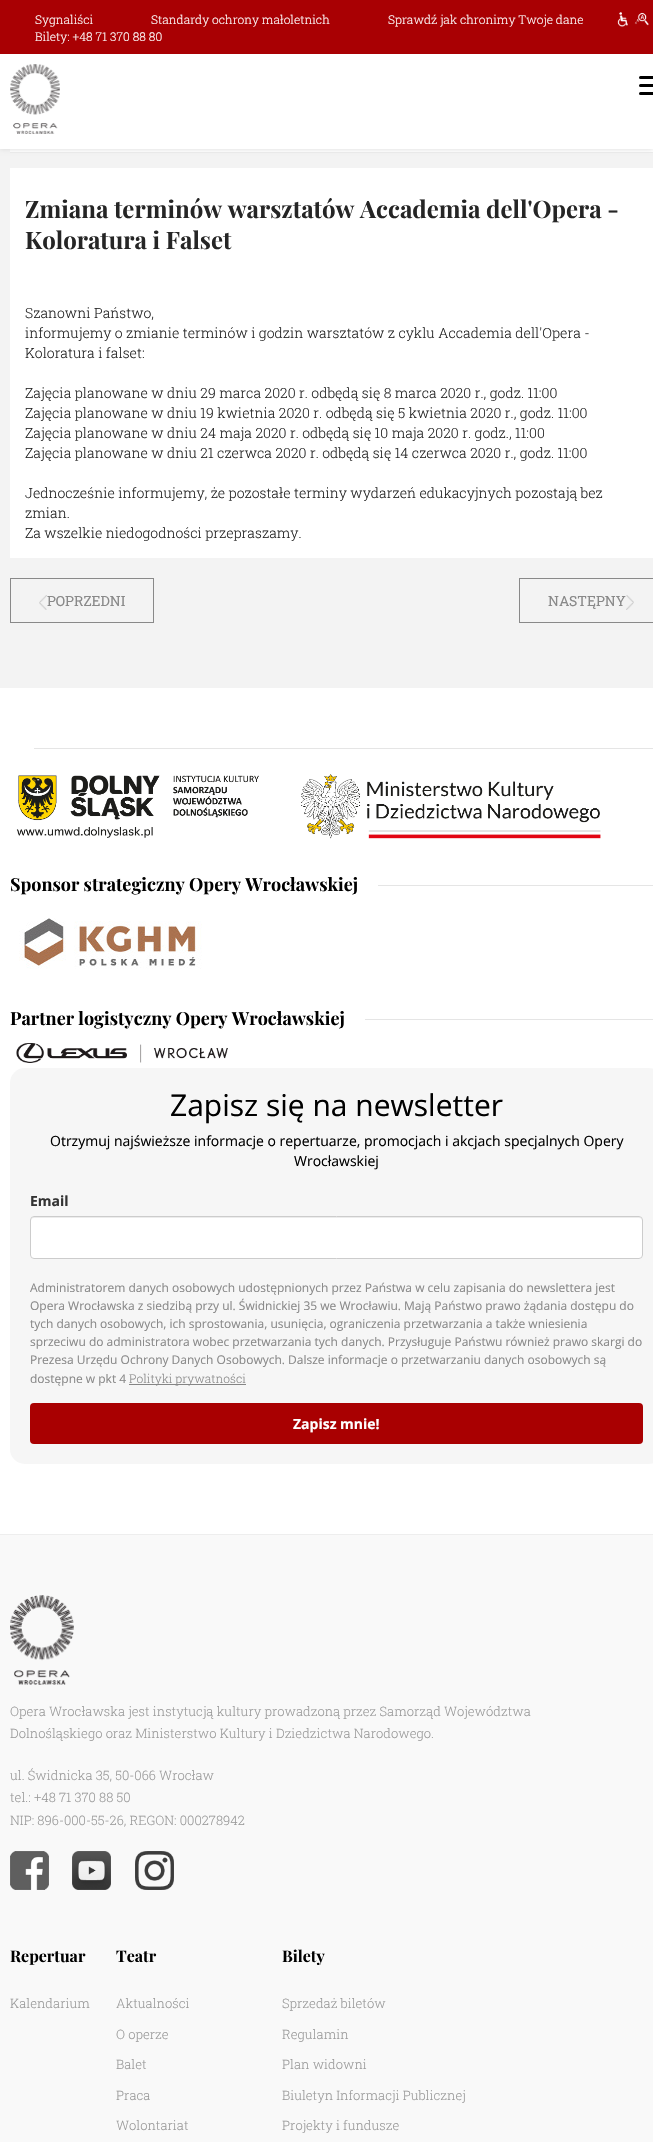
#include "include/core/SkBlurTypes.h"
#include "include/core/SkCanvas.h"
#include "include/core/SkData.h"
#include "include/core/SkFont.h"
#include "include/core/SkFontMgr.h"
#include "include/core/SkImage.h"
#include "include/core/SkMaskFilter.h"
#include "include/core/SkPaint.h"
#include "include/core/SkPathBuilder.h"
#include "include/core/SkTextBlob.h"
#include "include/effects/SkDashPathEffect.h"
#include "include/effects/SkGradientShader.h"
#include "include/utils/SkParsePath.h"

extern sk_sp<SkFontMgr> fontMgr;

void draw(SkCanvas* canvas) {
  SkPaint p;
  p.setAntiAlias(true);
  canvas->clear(SK_ColorWHITE);
  p.setColor(SkColorSetRGB(243, 243, 243));
  canvas->drawRect(SkRect::MakeLTRB(0, 149, 653, 688), p);
  p.setColor(SK_ColorWHITE);
  canvas->drawRect(SkRect::MakeLTRB(10, 149, 653, 152), p);
  p.setColor(SkColorSetRGB(235, 235, 235));
  canvas->drawRect(SkRect::MakeLTRB(10, 152, 653, 153), p);
  p.setColor(SkColorSetRGB(216, 216, 216));
  p.setMaskFilter(SkMaskFilter::MakeBlur(kNormal_SkBlurStyle, 2.5f));
  canvas->drawRect(SkRect::MakeLTRB(0, 0, 653, 149), p);
  p.setMaskFilter(nullptr);
  p.setColor(SkColorSetRGB(169, 0, 3));
  canvas->drawRect(SkRect::MakeLTRB(0, 0, 653, 54), p);
  canvas->drawImageRect(SkImages::DeferredFromEncodedData(SkData::MakeFromFileName("images/1.png")), SkRect::MakeLTRB(617, 12, 649, 27), SkSamplingOptions());
  p.setColor(SK_ColorWHITE);
  canvas->drawRect(SkRect::MakeLTRB(0, 54, 653, 149), p);
  canvas->drawImageRect(SkImages::DeferredFromEncodedData(SkData::MakeFromFileName("images/2.png")), SkRect::MakeLTRB(10, 64, 60, 134), SkSamplingOptions());
  p.setColor(SK_ColorBLACK);
  canvas->drawRoundRect(SkRect::MakeLTRB(639, 76, 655, 79), 1.5f, 1.5f, p);
  canvas->drawRoundRect(SkRect::MakeLTRB(639, 84, 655, 87), 1.5f, 1.5f, p);
  canvas->drawRoundRect(SkRect::MakeLTRB(639, 92, 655, 95), 1.5f, 1.5f, p);
  p.setColor(SK_ColorWHITE);
  canvas->drawRect(SkRect::MakeLTRB(10, 168, 653, 558), p);
  p.setStyle(SkPaint::kStroke_Style);
  p.setStrokeWidth(1);
  p.setColor(SkColorSetRGB(137, 137, 137));
  canvas->drawRect(SkRect::MakeLTRB(10.5f, 578.5f, 153.5f, 622.5f), p);
  canvas->drawImageRect(SkImages::DeferredFromEncodedData(SkData::MakeFromFileName("images/3.png")), SkRect::MakeLTRB(39, 595, 47, 610), SkSamplingOptions());
  canvas->drawRect(SkRect::MakeLTRB(519.5f, 578.5f, 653.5f, 622.5f), p);
  canvas->drawImageRect(SkImages::DeferredFromEncodedData(SkData::MakeFromFileName("images/4.png")), SkRect::MakeLTRB(626, 595, 634, 610), SkSamplingOptions());
  p.setStyle(SkPaint::kFill_Style);
  p.setColor(SkColorSetRGB(229, 229, 229));
  canvas->drawRect(SkRect::MakeLTRB(34, 748, 653, 749), p);
  canvas->drawImageRect(SkImages::DeferredFromEncodedData(SkData::MakeFromFileName("images/5.png")), SkRect::MakeLTRB(16, 774, 601, 839), SkSamplingOptions());
  canvas->drawRect(SkRect::MakeLTRB(378, 885, 653, 886), p);
  canvas->drawImageRect(SkImages::DeferredFromEncodedData(SkData::MakeFromFileName("images/6.png")), SkRect::MakeLTRB(19, 918, 202, 969), SkSamplingOptions());
  canvas->drawRect(SkRect::MakeLTRB(365, 1019, 653, 1020), p);
  canvas->drawImageRect(SkImages::DeferredFromEncodedData(SkData::MakeFromFileName("images/7.png")), SkRect::MakeLTRB(16, 1043, 228, 1063), SkSamplingOptions());
  p.setColor(SkColorSetRGB(246, 246, 246));
  canvas->drawRoundRect(SkRect::MakeLTRB(10, 1068, 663, 1464), 15, 15, p);
  p.setColor(SK_ColorWHITE);
  canvas->drawRoundRect(SkRect::MakeLTRB(30, 1216, 643, 1259), 4, 4, p);
  p.setColor(SkColorSetRGB(236, 236, 236));
  canvas->drawPath(SkPathBuilder().moveTo(34, 1218).lineTo(639, 1218).cubicTo(641, 1218, 642, 1219, 642, 1221).lineTo(642, 1220).cubicTo(642, 1218, 641, 1217, 639, 1217).lineTo(34, 1217).cubicTo(32, 1217, 31, 1218, 31, 1220).lineTo(31, 1221).cubicTo(31, 1219, 32, 1218, 34, 1218).close().detach(), p);
  p.setStyle(SkPaint::kStroke_Style);
  p.setColor(SkColorSetRGB(204, 204, 204));
  canvas->drawRoundRect(SkRect::MakeLTRB(30.5f, 1216.5f, 642.5f, 1258.5f), 3.5f, 3.5f, p);
  p.setStyle(SkPaint::kFill_Style);
  p.setColor(SkColorSetRGB(133, 133, 133));
  canvas->drawRect(SkRect::MakeLTRB(129, 1384, 246, 1385), p);
  p.setColor(SkColorSetRGB(169, 0, 1));
  canvas->drawRoundRect(SkRect::MakeLTRB(30, 1403, 643, 1444), 4, 4, p);
  p.setColor(SkColorSetRGB(249, 249, 249));
  canvas->drawRect(SkRect::MakeLTRB(0, 1535, 653, 2142), p);
  p.setColor(SkColorSetRGB(238, 238, 238));
  canvas->drawRect(SkRect::MakeLTRB(0, 1534, 653, 1535), p);
  canvas->drawImageRect(SkImages::DeferredFromEncodedData(SkData::MakeFromFileName("images/8.png")), SkRect::MakeLTRB(10, 1595, 74, 1685), SkSamplingOptions());
  canvas->drawImageRect(SkImages::DeferredFromEncodedData(SkData::MakeFromFileName("images/9.png")), SkRect::MakeLTRB(10, 1851, 49, 1890), SkSamplingOptions());
  canvas->drawImageRect(SkImages::DeferredFromEncodedData(SkData::MakeFromFileName("images/10.png")), SkRect::MakeLTRB(72, 1851, 111, 1890), SkSamplingOptions());
  canvas->drawImageRect(SkImages::DeferredFromEncodedData(SkData::MakeFromFileName("images/11.png")), SkRect::MakeLTRB(135, 1851, 174, 1890), SkSamplingOptions());
  SkFont font1(fontMgr->matchFamilyStyle("Roboto Slab", SkFontStyle(300, SkFontStyle::kNormal_Width, SkFontStyle::kUpright_Slant)), 12);
  font1.setSubpixel(true);
  p.setColor(SK_ColorWHITE);
  canvas->drawString("Sygnaliści", 35, 24, font1, p);
  canvas->drawString("Standardy ochrony małoletnich", 151, 24, font1, p);
  canvas->drawString("Sprawdź jak chronimy Twoje dane", 388, 24, font1, p);
  canvas->drawString("Bilety: +48 71 370 88 80", 35, 41, font1, p);
  SkFont font2(fontMgr->matchFamilyStyle("Playfair Display", SkFontStyle::Bold()), 24);
  font2.setSubpixel(true);
  p.setColor(SkColorSetRGB(37, 37, 37));
  canvas->drawString("Zmiana terminów warsztatów Accademia dell'Opera -", 25, 218, font2, p);
  canvas->drawString("Koloratura i Falset", 25, 249, font2, p);
  SkFont font3(fontMgr->matchFamilyStyle("Roboto Slab", SkFontStyle(300, SkFontStyle::kNormal_Width, SkFontStyle::kUpright_Slant)), 14);
  font3.setSubpixel(true);
  canvas->drawString("Szanowni Państwo,", 25, 318, font3, p);
  canvas->drawString("informujemy o zmianie terminów i godzin warsztatów z cyklu Accademia dell'Opera -", 25, 338, font3, p);
  canvas->drawString("Koloratura i falset:", 25, 358, font3, p);
  canvas->drawString("Zajęcia planowane w dniu 29 marca 2020 r. odbędą się 8 marca 2020 r., godz. 11:00", 25, 398, font3, p);
  canvas->drawString("Zajęcia planowane w dniu 19 kwietnia 2020 r. odbędą się 5 kwietnia 2020 r., godz. 11:00", 25, 418, font3, p);
  canvas->drawString("Zajęcia planowane w dniu 24 maja 2020 r. odbędą się 10 maja 2020 r. godz., 11:00", 25, 438, font3, p);
  canvas->drawString("Zajęcia planowane w dniu 21 czerwca 2020 r. odbędą się 14 czerwca 2020 r., godz. 11:00", 25, 458, font3, p);
  canvas->drawString("Jednocześnie informujemy, że pozostałe terminy wydarzeń edukacyjnych pozostają bez", 25, 498, font3, p);
  canvas->drawString("zmian.", 25, 518, font3, p);
  canvas->drawString("Za wszelkie niedogodności przepraszamy.", 25, 538, font3, p);
  SkFont font4(fontMgr->matchFamilyStyle("Roboto Slab", SkFontStyle::Normal()), 14);
  font4.setSubpixel(true);
  p.setColor(SkColorSetRGB(137, 137, 137));
  canvas->drawString("POPRZEDNI", 47, 606, font4, p);
  canvas->drawString("N", 548, 606, font4, p);
  SkFont font5(fontMgr->matchFamilyStyle("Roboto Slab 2", SkFontStyle::Normal()), 14);
  font5.setSubpixel(true);
  canvas->drawString("A", 559, 606, font5, p);
  canvas->drawString("ST", 569, 606, font4, p);
  canvas->drawString("Ę", 587, 606, font5, p);
  canvas->drawString("PNY", 596, 606, font4, p);
  SkFont font6(fontMgr->matchFamilyStyle("Playfair Display", SkFontStyle::Bold()), 18);
  font6.setSubpixel(true);
  p.setColor(SK_ColorBLACK);
  canvas->drawString("Sponsor strategiczny Opery Wrocławskiej", 10, 891, font6, p);
  canvas->drawString("Partner logistyczny Opery Wrocławskiej", 10, 1025, font6, p);
  SkFont font7(fontMgr->matchFamilyStyle("Open Sans", SkFontStyle::Normal()), 30);
  font7.setSubpixel(true);
  canvas->drawString("Zapisz się na newsletter", 170, 1116, font7, p);
  SkFont font8(fontMgr->matchFamilyStyle("Open Sans", SkFontStyle::Normal()), 14);
  font8.setSubpixel(true);
  canvas->drawString("Otrzymuj najświeższe informacje o repertuarze, promocjach i akcjach specjalnych Opery", 50, 1146, font8, p);
  canvas->drawString("Wrocławskiej", 294, 1166, font8, p);
  SkFont font9(fontMgr->matchFamilyStyle("Open Sans", SkFontStyle::Bold()), 14);
  font9.setSubpixel(true);
  p.setColor(SkColorSetRGB(51, 51, 51));
  canvas->drawString("Email", 30, 1206, font9, p);
  SkFont font10(fontMgr->matchFamilyStyle("Open Sans", SkFontStyle::Normal()), 12);
  font10.setSubpixel(true);
  p.setColor(SkColorSetRGB(137, 137, 137));
  canvas->drawString("Administratorem danych osobowych udostępnionych przez Państwa w celu zapisania do newslettera jest", 30, 1292, font10, p);
  canvas->drawString("Opera Wrocławska z siedzibą przy ul. Świdnickiej 35 we Wrocławiu. Mają Państwo prawo żądania dostępu do", 30, 1310, font10, p);
  canvas->drawString("tych danych osobowych, ich sprostowania, usunięcia, ograniczenia przetwarzania a także wniesienia", 30, 1328, font10, p);
  canvas->drawString("sprzeciwu do administratora wobec przetwarzania tych danych. Przysługuje Państwu również prawo skargi do", 30, 1346, font10, p);
  canvas->drawString("Prezesa Urzędu Ochrony Danych Osobowych. Dalsze informacje o przetwarzaniu danych osobowych są", 30, 1364, font10, p);
  canvas->drawString("dostępne w pkt 4", 30, 1383, font10, p);
  canvas->drawString("Polityki prywatności", 129, 1383, font1, p);
  p.setColor(SK_ColorWHITE);
  canvas->drawString("Zapisz mnie!", 293, 1429, font9, p);
  SkFont font11(fontMgr->matchFamilyStyle("Roboto Slab", SkFontStyle(300, SkFontStyle::kNormal_Width, SkFontStyle::kUpright_Slant)), 13);
  font11.setSubpixel(true);
  p.setColor(SkColorSetRGB(154, 154, 154));
  canvas->drawString("Opera Wrocławska jest instytucją kultury prowadzoną przez Samorząd Województwa", 10, 1716, font11, p);
  canvas->drawString("Dolnośląskiego oraz Ministerstwo Kultury i Dziedzictwa Narodowego.", 10, 1738, font11, p);
  canvas->drawString("ul. Świdnicka 35, 50-066 Wrocław", 10, 1780, font11, p);
  canvas->drawString("tel.: +48 71 370 88 50", 10, 1802, font11, p);
  canvas->drawString("NIP: 896-000-55-26, REGON: 000278942", 10, 1825, font11, p);
  SkFont font12(fontMgr->matchFamilyStyle("Playfair Display", SkFontStyle::Bold()), 16);
  font12.setSubpixel(true);
  p.setColor(SK_ColorBLACK);
  canvas->drawString("Repertuar", 10, 1962, font12, p);
  p.setColor(SkColorSetRGB(154, 154, 154));
  canvas->drawString("Kalendarium", 10, 2008, font11, p);
  p.setColor(SK_ColorBLACK);
  canvas->drawString("Teatr", 116, 1962, font12, p);
  p.setColor(SkColorSetRGB(154, 154, 154));
  canvas->drawString("Aktualności", 116, 2008, font11, p);
  canvas->drawString("O operze", 116, 2039, font11, p);
  canvas->drawString("Balet", 116, 2069, font11, p);
  canvas->drawString("Praca", 116, 2100, font11, p);
  canvas->drawString("Wolontariat", 116, 2130, font11, p);
  p.setColor(SK_ColorBLACK);
  canvas->drawString("Bilety", 282, 1962, font12, p);
  p.setColor(SkColorSetRGB(154, 154, 154));
  canvas->drawString("Sprzedaż biletów", 282, 2008, font11, p);
  canvas->drawString("Regulamin", 282, 2039, font11, p);
  canvas->drawString("Plan widowni", 282, 2069, font11, p);
  canvas->drawString("Biuletyn Informacji Publicznej", 282, 2100, font11, p);
  canvas->drawString("Projekty i fundusze", 282, 2130, font11, p);
}
